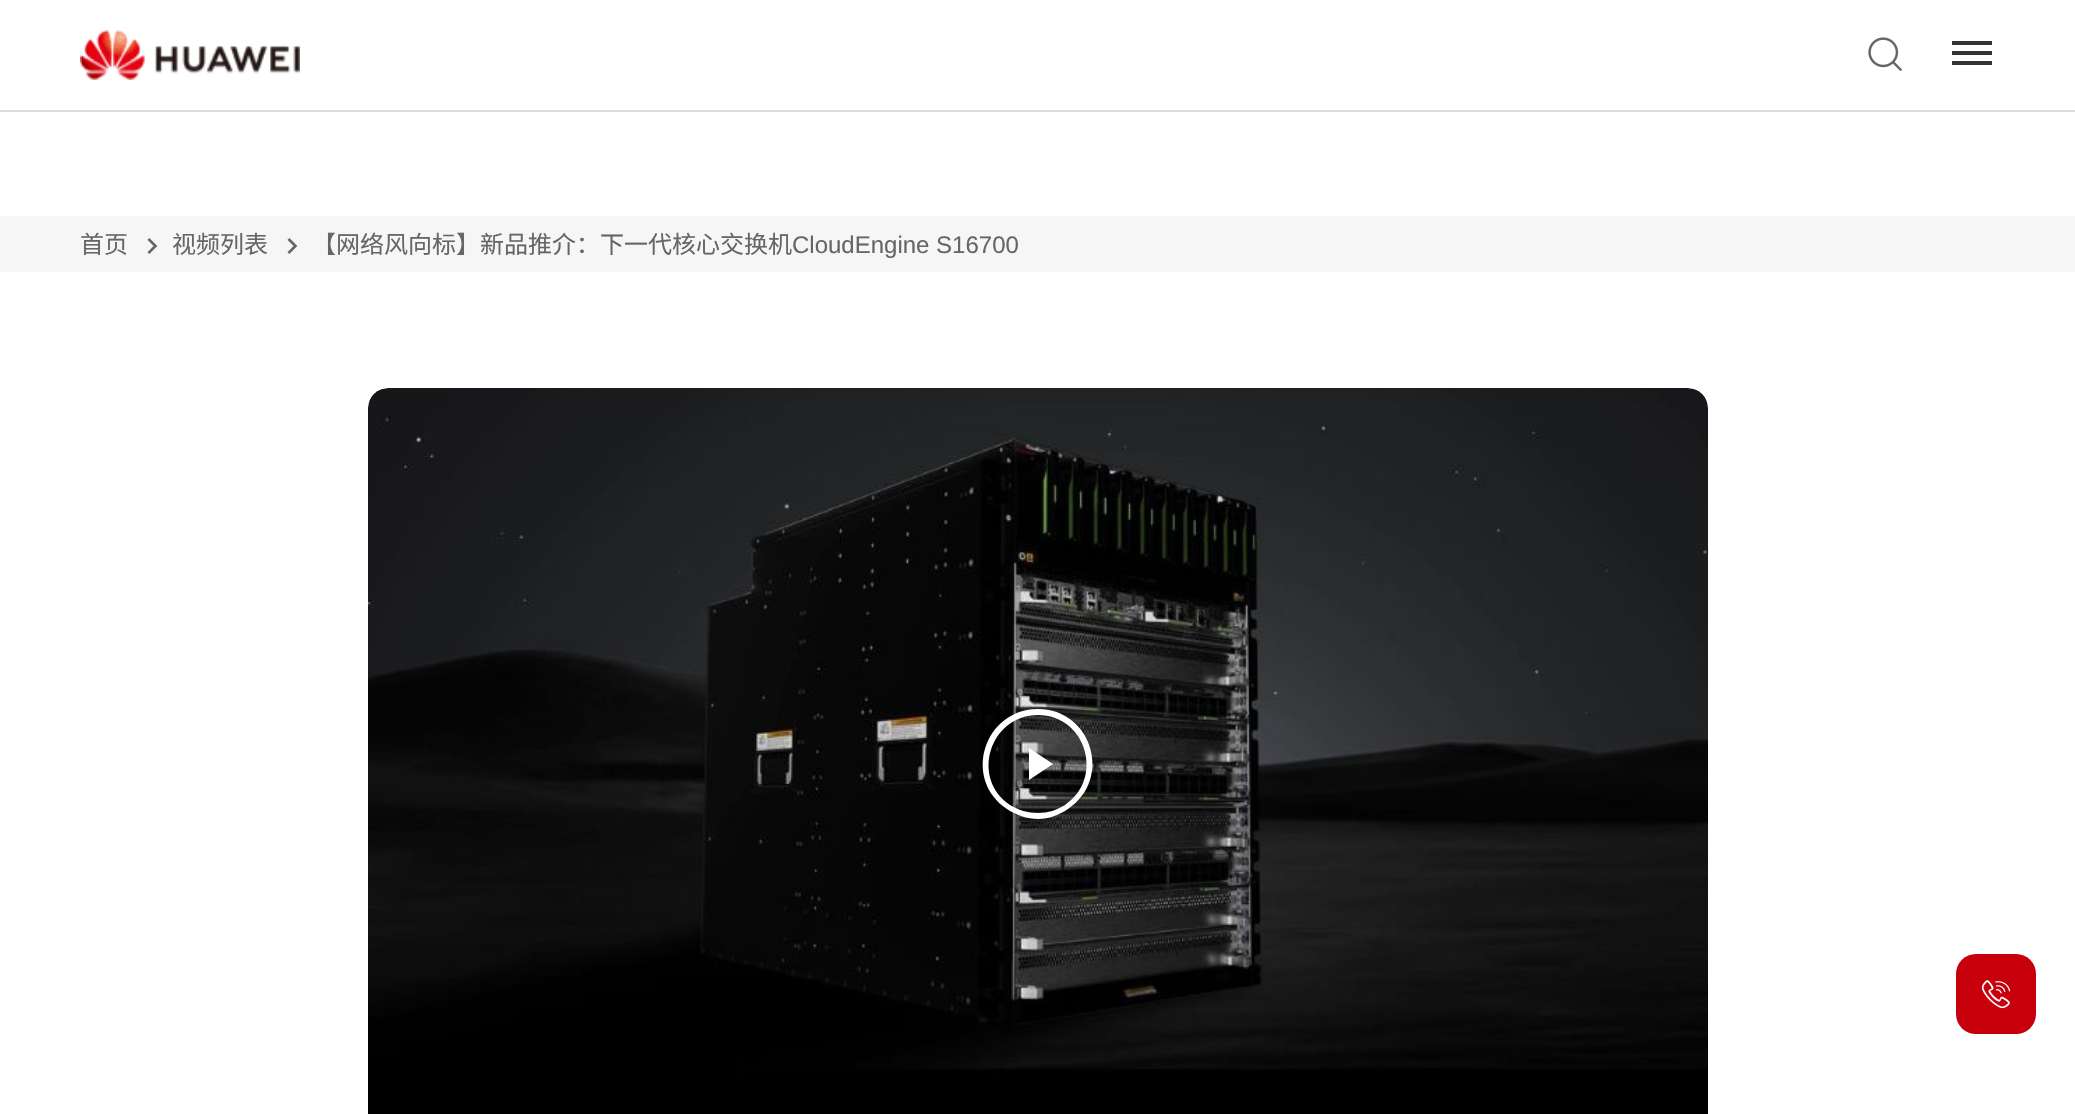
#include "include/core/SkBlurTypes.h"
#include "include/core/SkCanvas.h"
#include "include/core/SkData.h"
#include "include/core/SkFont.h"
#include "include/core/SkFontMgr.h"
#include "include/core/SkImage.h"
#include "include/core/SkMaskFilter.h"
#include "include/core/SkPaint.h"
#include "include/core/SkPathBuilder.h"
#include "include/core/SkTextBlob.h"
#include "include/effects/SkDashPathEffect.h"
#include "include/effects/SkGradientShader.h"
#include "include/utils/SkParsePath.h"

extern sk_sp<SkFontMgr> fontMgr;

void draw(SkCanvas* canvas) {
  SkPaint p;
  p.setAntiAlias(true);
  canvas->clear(SK_ColorWHITE);
  p.setColor(SkColorSetRGB(221, 221, 221));
  canvas->drawRect(SkRect::MakeLTRB(0, 110, 2075, 112), p);
  canvas->drawImageRect(SkImages::DeferredFromEncodedData(SkData::MakeFromFileName("images/1.png")), SkRect::MakeLTRB(80, 30, 300, 80), SkSamplingOptions());
  canvas->drawImageRect(SkImages::DeferredFromEncodedData(SkData::MakeFromFileName("images/2.png")), SkRect::MakeLTRB(1868, 37, 1902, 71), SkSamplingOptions());
  p.setColor(SkColorSetRGB(51, 51, 51));
  canvas->drawPath(SkPathBuilder().moveTo(1952, 61).lineTo(1952, 65).lineTo(1992, 65).lineTo(1992, 61).close().moveTo(1952, 51).lineTo(1952, 55).lineTo(1992, 55).lineTo(1992, 51).close().moveTo(1952, 41).lineTo(1952, 45).lineTo(1992, 45).lineTo(1992, 41).close().detach(), p);
  p.setColor(SkColorSetRGB(246, 246, 246));
  canvas->drawRect(SkRect::MakeLTRB(0, 216, 2075, 272), p);
  canvas->drawImageRect(SkImages::DeferredFromEncodedData(SkData::MakeFromFileName("images/3.png")), SkRect::MakeLTRB(147, 238, 158, 254), SkSamplingOptions());
  canvas->drawImageRect(SkImages::DeferredFromEncodedData(SkData::MakeFromFileName("images/3.png")), SkRect::MakeLTRB(287, 238, 298, 254), SkSamplingOptions());
  canvas->drawImageRect(SkImages::DeferredFromEncodedData(SkData::MakeFromFileName("images/4.png")), SkRect::MakeLTRB(368, 388, 1708, 1114), SkSamplingOptions());
  p.setColor(SK_ColorWHITE);
  canvas->drawPath(SkPathBuilder().moveTo(1038, 819).cubicTo(1027, 819, 1016, 815, 1007, 809).cubicTo(962, 779, 984, 709, 1038, 709).cubicTo(1092, 709, 1113, 779, 1068, 809).cubicTo(1059, 815, 1049, 819, 1038, 819).close().moveTo(1038, 715).cubicTo(990, 715, 970, 778, 1010, 805).cubicTo(1018, 810, 1028, 813, 1038, 813).cubicTo(1048, 813, 1057, 810, 1065, 805).cubicTo(1105, 778, 1086, 715, 1038, 715).close().moveTo(1029, 748).lineTo(1029, 780).lineTo(1053, 764).close().detach(), p);
  p.setColor(SkColorSetRGB(199, 0, 11));
  canvas->drawRoundRect(SkRect::MakeLTRB(1956, 954, 2036, 1034), 20, 20, p);
  canvas->drawImageRect(SkImages::DeferredFromEncodedData(SkData::MakeFromFileName("images/5.png")), SkRect::MakeLTRB(1981, 980, 2011, 1009), SkSamplingOptions());
  SkFont font1(fontMgr->matchFamilyStyle("Noto Sans CJK SC", SkFontStyle::Normal()), 24);
  font1.setSubpixel(true);
  p.setColor(SkColorSetRGB(102, 102, 102));
  canvas->drawString("首页", 80, 253, font1, p);
  canvas->drawString("视频列表", 172, 253, font1, p);
  canvas->drawString("【网络风向标】新品推介：下一代核心交换机", 312, 253, font1, p);
  SkFont font2(fontMgr->matchFamilyStyle("Liberation Sans", SkFontStyle::Normal()), 24);
  font2.setSubpixel(true);
  canvas->drawString("CloudEngine S16700", 792, 253, font2, p);
}
